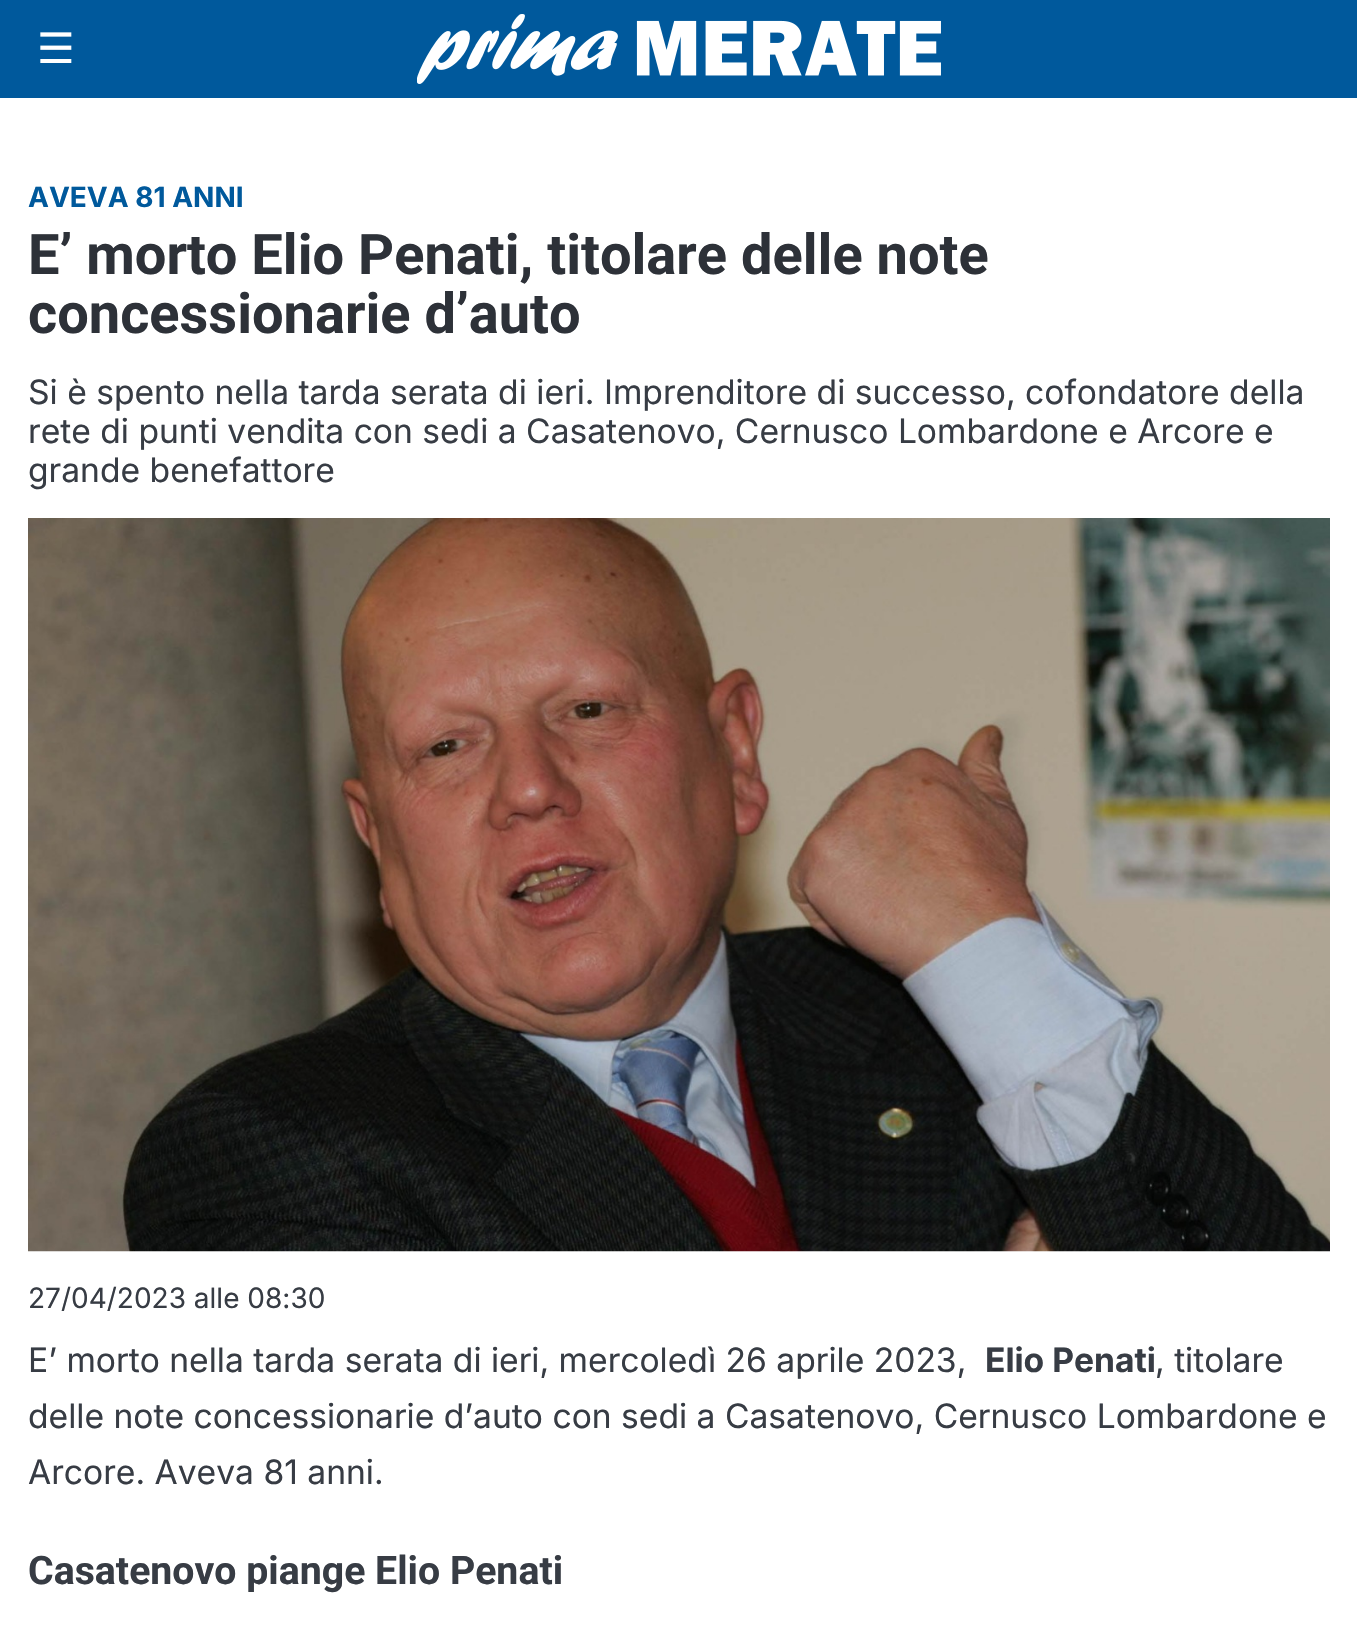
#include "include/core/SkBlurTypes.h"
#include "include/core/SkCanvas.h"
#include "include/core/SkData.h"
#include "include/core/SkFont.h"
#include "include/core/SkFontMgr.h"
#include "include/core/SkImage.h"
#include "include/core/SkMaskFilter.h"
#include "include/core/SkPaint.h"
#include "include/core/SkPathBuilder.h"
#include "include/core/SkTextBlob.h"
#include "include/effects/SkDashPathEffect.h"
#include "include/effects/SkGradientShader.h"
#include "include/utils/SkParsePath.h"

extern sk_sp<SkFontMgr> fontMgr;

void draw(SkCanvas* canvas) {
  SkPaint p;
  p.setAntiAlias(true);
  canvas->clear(SK_ColorWHITE);
  p.setColor(SkColorSetRGB(0, 89, 156));
  canvas->drawRect(SkRect::MakeLTRB(0, 0, 1357, 98), p);
  canvas->drawImageRect(SkImages::DeferredFromEncodedData(SkData::MakeFromFileName("images/1.png")), SkRect::MakeLTRB(417, 14, 941, 84), SkSamplingOptions());
  canvas->drawImageRect(SkImages::DeferredFromEncodedData(SkData::MakeFromFileName("images/2.png")), SkRect::MakeLTRB(28, 518, 1330, 1252), SkSamplingOptions());
  SkFont font1(fontMgr->matchFamilyStyle("DejaVu Sans", SkFontStyle::Normal()), 42);
  font1.setSubpixel(true);
  p.setColor(SK_ColorWHITE);
  canvas->drawString("☰", 37, 63, font1, p);
  SkFont font2(fontMgr->matchFamilyStyle("Inter", SkFontStyle::Bold()), 28);
  font2.setSubpixel(true);
  p.setColor(SkColorSetRGB(0, 89, 156));
  canvas->drawString("AVEVA 81 ANNI", 28, 207, font2, p);
  SkFont font3(fontMgr->matchFamilyStyle("Roboto", SkFontStyle::Bold()), 56);
  font3.setSubpixel(true);
  p.setColor(SkColorSetRGB(45, 49, 56));
  canvas->drawString("E’ morto Elio Penati, titolare delle note", 28, 274, font3, p);
  canvas->drawString("concessionarie d’auto", 28, 333, font3, p);
  SkFont font4(fontMgr->matchFamilyStyle("Inter", SkFontStyle::Normal()), 33.6f);
  font4.setSubpixel(true);
  p.setColor(SkColorSetRGB(55, 60, 68));
  canvas->drawString("Si è spento nella tarda serata di ieri. Imprenditore di successo, cofondatore della", 28, 404, font4, p);
  canvas->drawString("rete di punti vendita con sedi a Casatenovo, Cernusco Lombardone e Arcore e", 28, 443, font4, p);
  canvas->drawString("grande benefattore", 28, 482, font4, p);
  SkFont font5(fontMgr->matchFamilyStyle("Inter", SkFontStyle::Normal()), 28);
  font5.setSubpixel(true);
  canvas->drawString("27/04/2023 alle 08:30", 28, 1308, font5, p);
  canvas->drawString("E’ morto nella tarda serata di ieri, mercoledì 26 aprile 2023,", 28, 1372, font4, p);
  SkFont font6(fontMgr->matchFamilyStyle("Inter", SkFontStyle::Bold()), 33.6f);
  font6.setSubpixel(true);
  canvas->drawString("Elio Penati", 985, 1372, font6, p);
  canvas->drawString(", titolare", 1155, 1372, font4, p);
  canvas->drawString("delle note concessionarie d’auto con sedi a Casatenovo, Cernusco Lombardone e", 28, 1428, font4, p);
  canvas->drawString("Arcore. Aveva 81 anni.", 28, 1484, font4, p);
  SkFont font7(fontMgr->matchFamilyStyle("Roboto", SkFontStyle::Bold()), 39.25f);
  font7.setSubpixel(true);
  canvas->drawString("Casatenovo piange Elio Penati", 28, 1584, font7, p);
}
